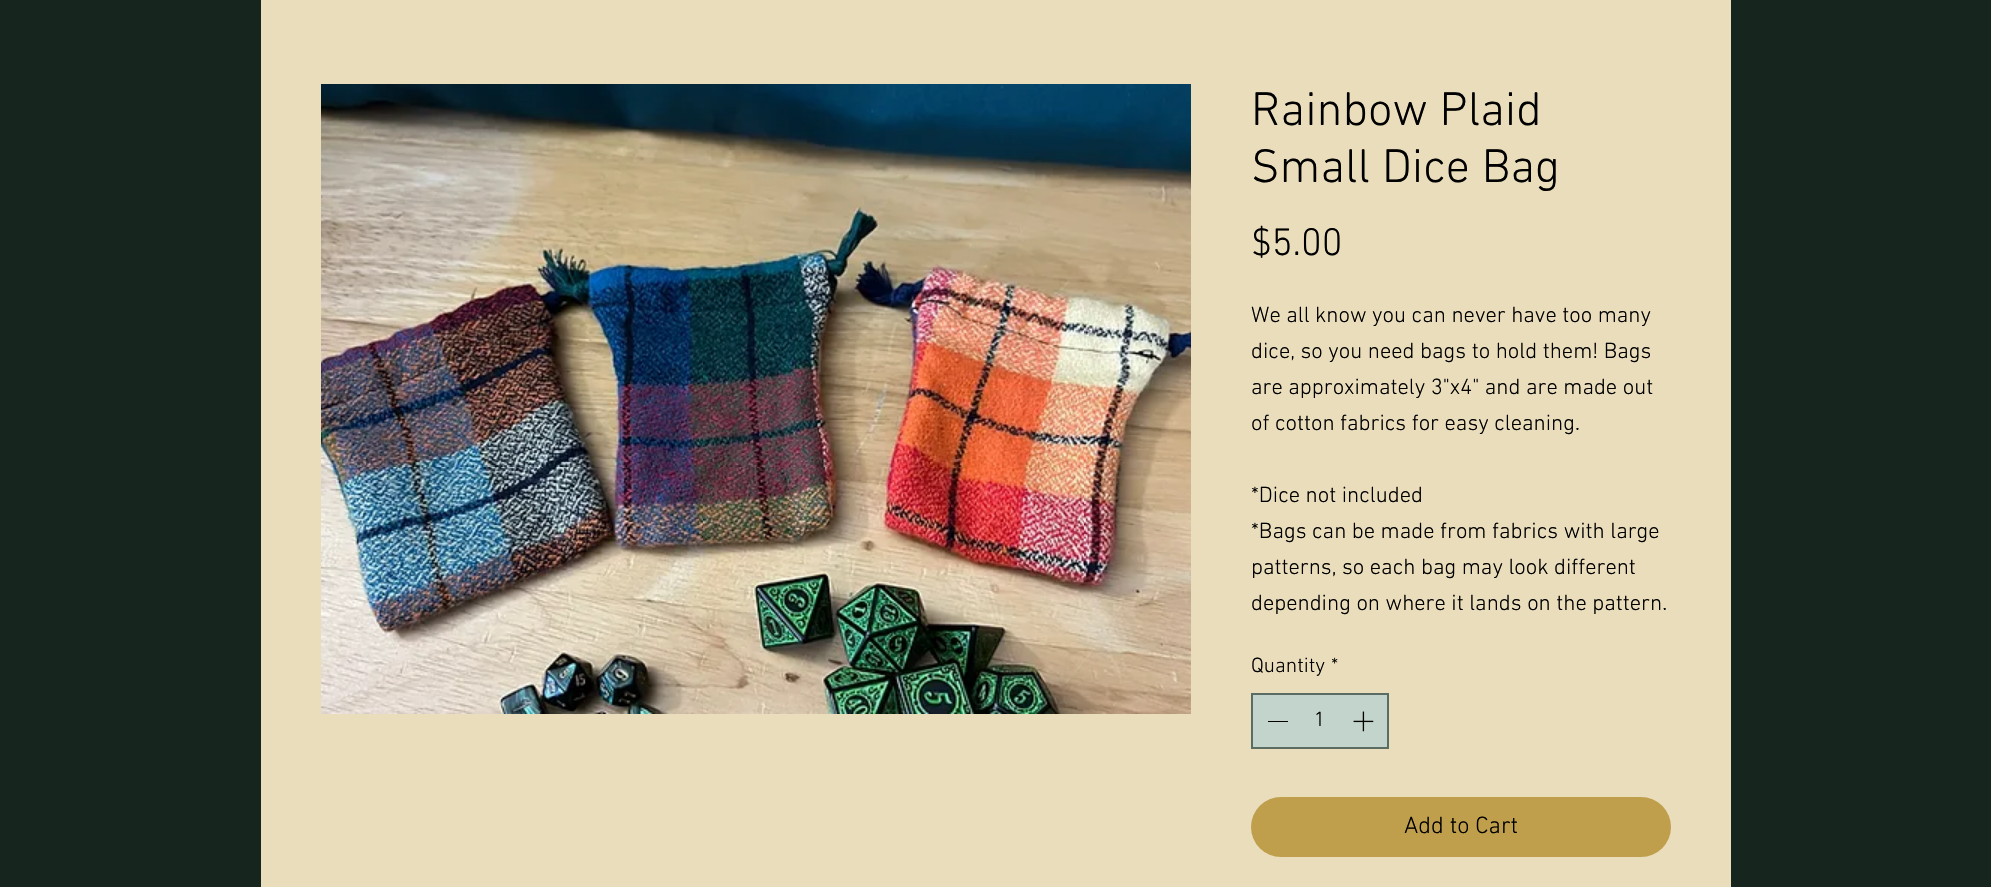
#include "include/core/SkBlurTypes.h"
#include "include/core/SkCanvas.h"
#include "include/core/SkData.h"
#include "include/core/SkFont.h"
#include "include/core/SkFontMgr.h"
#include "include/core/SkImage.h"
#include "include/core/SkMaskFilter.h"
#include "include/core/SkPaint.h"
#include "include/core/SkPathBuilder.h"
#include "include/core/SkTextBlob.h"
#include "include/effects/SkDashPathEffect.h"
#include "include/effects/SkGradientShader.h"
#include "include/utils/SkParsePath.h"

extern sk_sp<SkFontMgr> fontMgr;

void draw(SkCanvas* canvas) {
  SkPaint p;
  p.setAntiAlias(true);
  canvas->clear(SkColorSetRGB(22, 38, 30));
  p.setColor(SkColorSetRGB(234, 221, 187));
  canvas->drawRect(SkRect::MakeLTRB(261, 0, 1731, 887), p);
  canvas->drawImageRect(SkImages::DeferredFromEncodedData(SkData::MakeFromFileName("images/1.png")), SkRect::MakeLTRB(321, 84, 1191, 714), SkSamplingOptions());
  p.setColor(SkColorSetRGB(194, 212, 203));
  canvas->drawRect(SkRect::MakeLTRB(1252, 694, 1388, 748), p);
  p.setStyle(SkPaint::kStroke_Style);
  p.setStrokeWidth(2);
  p.setColor(SkColorSetRGB(91, 108, 99));
  canvas->drawRect(SkRect::MakeLTRB(1252, 694, 1388, 748), p);
  p.setStyle(SkPaint::kFill_Style);
  p.setColor(SK_ColorBLACK);
  canvas->drawRect(SkRect::MakeLTRB(1268, 721, 1288, 722), p);
  canvas->drawImageRect(SkImages::DeferredFromEncodedData(SkData::MakeFromFileName("images/2.png")), SkRect::MakeLTRB(1353, 711, 1374, 732), SkSamplingOptions());
  p.setColor(SkColorSetRGB(191, 159, 76));
  canvas->drawRoundRect(SkRect::MakeLTRB(1251, 797, 1671, 857), 30, 30, p);
  SkFont font1(fontMgr->matchFamilyStyle("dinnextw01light", SkFontStyle(300, SkFontStyle::kNormal_Width, SkFontStyle::kUpright_Slant)), 48);
  font1.setSubpixel(true);
  p.setColor(SK_ColorBLACK);
  canvas->drawString("Rainbow Plaid", 1251, 125, font1, p);
  canvas->drawString("Small Dice Bag", 1251, 182, font1, p);
  SkFont font2(fontMgr->matchFamilyStyle("dinnextw01light", SkFontStyle(300, SkFontStyle::kNormal_Width, SkFontStyle::kUpright_Slant)), 39);
  font2.setSubpixel(true);
  canvas->drawString("$5.00", 1251, 255, font2, p);
  SkFont font3(fontMgr->matchFamilyStyle("dinnextw01light", SkFontStyle(300, SkFontStyle::kNormal_Width, SkFontStyle::kUpright_Slant)), 22.5f);
  font3.setSubpixel(true);
  canvas->drawString("We all know you can never have too many", 1251, 322, font3, p);
  canvas->drawString("dice, so you need bags to hold them! Bags", 1251, 358, font3, p);
  canvas->drawString("are approximately 3\"x4\" and are made out", 1251, 394, font3, p);
  canvas->drawString("of cotton fabrics for easy cleaning.", 1251, 430, font3, p);
  canvas->drawString("*Dice not included", 1251, 502, font3, p);
  canvas->drawString("*Bags can be made from fabrics with large", 1251, 538, font3, p);
  canvas->drawString("patterns, so each bag may look different", 1251, 574, font3, p);
  canvas->drawString("depending on where it lands on the pattern.", 1251, 610, font3, p);
  SkFont font4(fontMgr->matchFamilyStyle("dinnextw01light", SkFontStyle(300, SkFontStyle::kNormal_Width, SkFontStyle::kUpright_Slant)), 21);
  font4.setSubpixel(true);
  canvas->drawString("Quantity", 1251, 672, font4, p);
  canvas->drawString("*", 1331, 672, font4, p);
  canvas->drawString("1", 1314, 726, font4, p);
  SkFont font5(fontMgr->matchFamilyStyle("dinnextw01light", SkFontStyle(300, SkFontStyle::kNormal_Width, SkFontStyle::kUpright_Slant)), 24);
  font5.setSubpixel(true);
  canvas->drawString("Add to Cart", 1404, 833, font5, p);
}
